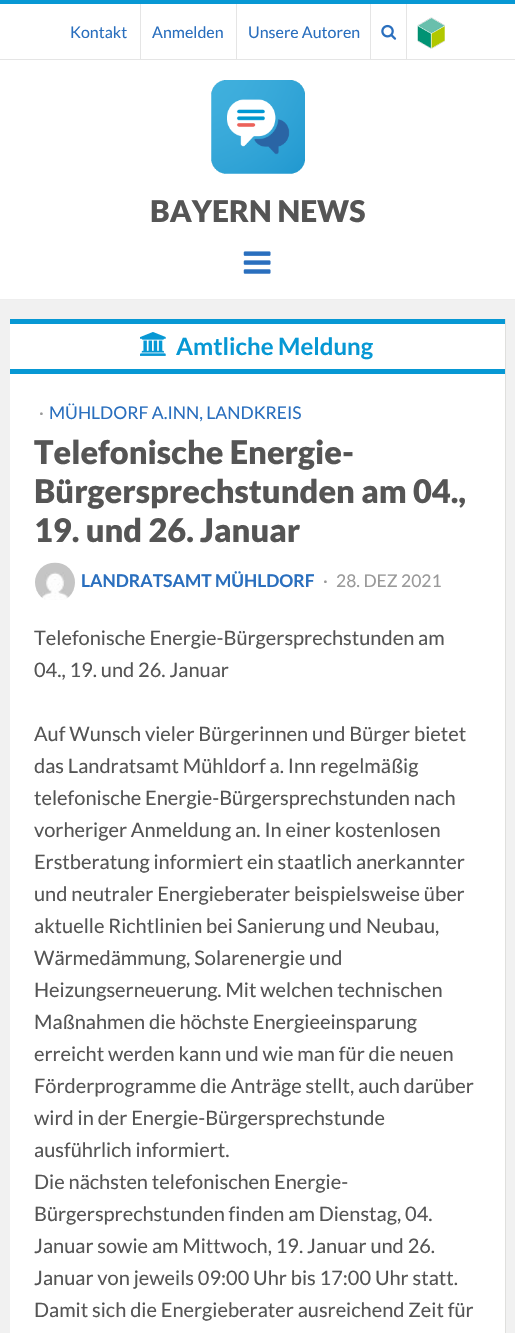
#include "include/core/SkBlurTypes.h"
#include "include/core/SkCanvas.h"
#include "include/core/SkData.h"
#include "include/core/SkFont.h"
#include "include/core/SkFontMgr.h"
#include "include/core/SkImage.h"
#include "include/core/SkMaskFilter.h"
#include "include/core/SkPaint.h"
#include "include/core/SkPathBuilder.h"
#include "include/core/SkTextBlob.h"
#include "include/effects/SkDashPathEffect.h"
#include "include/effects/SkGradientShader.h"
#include "include/utils/SkParsePath.h"

extern sk_sp<SkFontMgr> fontMgr;

void draw(SkCanvas* canvas) {
  SkPaint p;
  p.setAntiAlias(true);
  canvas->clear(SkColorSetRGB(241, 241, 241));
  p.setColor(SK_ColorWHITE);
  canvas->drawRect(SkRect::MakeLTRB(0, 4, 515, 59), p);
  p.setColor(SkColorSetRGB(7, 152, 212));
  canvas->drawRect(SkRect::MakeLTRB(0, 0, 515, 4), p);
  p.setColor(SkColorSetRGB(229, 229, 229));
  canvas->drawRect(SkRect::MakeLTRB(0, 59, 515, 60), p);
  canvas->drawRect(SkRect::MakeLTRB(140, 4, 141, 59), p);
  canvas->drawRect(SkRect::MakeLTRB(236, 4, 237, 59), p);
  canvas->drawRect(SkRect::MakeLTRB(370, 4, 371, 59), p);
  canvas->drawImageRect(SkImages::DeferredFromEncodedData(SkData::MakeFromFileName("images/1.png")), SkRect::MakeLTRB(381, 24, 397, 40), SkSamplingOptions());
  canvas->drawRect(SkRect::MakeLTRB(406, 4, 407, 59), p);
  canvas->drawImageRect(SkImages::DeferredFromEncodedData(SkData::MakeFromFileName("images/2.png")), SkRect::MakeLTRB(417, 17, 445, 49), SkSamplingOptions());
  p.setColor(SK_ColorWHITE);
  canvas->drawRect(SkRect::MakeLTRB(0, 60, 515, 299), p);
  p.setColor(SkColorSetRGB(238, 238, 238));
  canvas->drawRect(SkRect::MakeLTRB(0, 299, 515, 300), p);
  canvas->drawImageRect(SkImages::DeferredFromEncodedData(SkData::MakeFromFileName("images/3.png")), SkRect::MakeLTRB(211, 80, 305, 174), SkSamplingOptions());
  canvas->drawImageRect(SkImages::DeferredFromEncodedData(SkData::MakeFromFileName("images/4.png")), SkRect::MakeLTRB(243, 251, 271, 274), SkSamplingOptions());
  p.setColor(SK_ColorWHITE);
  canvas->drawRect(SkRect::MakeLTRB(10, 324, 505, 1333), p);
  p.setColor(SkColorSetRGB(223, 223, 221));
  canvas->drawRect(SkRect::MakeLTRB(505, 319, 506, 1333), p);
  p.setColor(SkColorSetRGB(7, 152, 212));
  canvas->drawRect(SkRect::MakeLTRB(10, 319, 505, 324), p);
  canvas->drawRect(SkRect::MakeLTRB(10, 369, 505, 374), p);
  canvas->drawImageRect(SkImages::DeferredFromEncodedData(SkData::MakeFromFileName("images/5.png")), SkRect::MakeLTRB(140, 332, 166, 356), SkSamplingOptions());
  canvas->drawImageRect(SkImages::DeferredFromEncodedData(SkData::MakeFromFileName("images/6.png")), SkRect::MakeLTRB(35, 562, 75, 600), SkSamplingOptions());
  SkFont font1(fontMgr->matchFamilyStyle("Lato", SkFontStyle::Normal()), 16);
  font1.setSubpixel(true);
  p.setColor(SkColorSetRGB(42, 111, 190));
  canvas->drawString("Kontakt", 70, 38, font1, p);
  canvas->drawString("Anmelden", 152, 38, font1, p);
  canvas->drawString("Unsere Autoren", 248, 38, font1, p);
  SkFont font2(fontMgr->matchFamilyStyle("Lato", SkFontStyle(900, SkFontStyle::kNormal_Width, SkFontStyle::kUpright_Slant)), 30);
  font2.setSubpixel(true);
  p.setColor(SkColorSetRGB(85, 85, 85));
  canvas->drawString("BAYERN NEWS", 150, 222, font2, p);
  SkFont font3(fontMgr->matchFamilyStyle("Lato", SkFontStyle::Bold()), 24);
  font3.setSubpixel(true);
  p.setColor(SkColorSetRGB(7, 152, 212));
  canvas->drawString("Amtliche Meldung", 176, 355, font3, p);
  SkFont font4(fontMgr->matchFamilyStyle("Lato", SkFontStyle::Normal()), 17.5f);
  font4.setSubpixel(true);
  p.setColor(SkColorSetRGB(153, 153, 153));
  canvas->drawString("·", 39, 419, font4, p);
  p.setColor(SkColorSetRGB(42, 111, 190));
  canvas->drawString("MÜHLDORF A.INN, LANDKREIS", 49, 419, font4, p);
  SkFont font5(fontMgr->matchFamilyStyle("Lato", SkFontStyle(900, SkFontStyle::kNormal_Width, SkFontStyle::kUpright_Slant)), 32.5f);
  font5.setSubpixel(true);
  p.setColor(SkColorSetRGB(85, 85, 85));
  canvas->drawString("Telefonische Energie-", 34, 464, font5, p);
  canvas->drawString("Bürgersprechstunden am 04.,", 34, 503, font5, p);
  canvas->drawString("19. und 26. Januar", 34, 542, font5, p);
  SkFont font6(fontMgr->matchFamilyStyle("Lato", SkFontStyle::Bold()), 17.5f);
  font6.setSubpixel(true);
  p.setColor(SkColorSetRGB(42, 111, 190));
  canvas->drawString("LANDRATSAMT MÜHLDORF", 81, 587, font6, p);
  p.setColor(SkColorSetRGB(153, 153, 153));
  canvas->drawString("·", 323, 587, font4, p);
  canvas->drawString("28. DEZ 2021", 336, 587, font4, p);
  SkFont font7(fontMgr->matchFamilyStyle("Lato", SkFontStyle::Normal()), 20);
  font7.setSubpixel(true);
  p.setColor(SkColorSetRGB(85, 85, 85));
  canvas->drawString("Telefonische Energie-Bürgersprechstunden am", 34, 645, font7, p);
  canvas->drawString("04., 19. und 26. Januar", 34, 677, font7, p);
  canvas->drawString("Auf Wunsch vieler Bürgerinnen und Bürger bietet", 34, 741, font7, p);
  canvas->drawString("das Landratsamt Mühldorf a. Inn regelmäßig", 34, 773, font7, p);
  canvas->drawString("telefonische Energie-Bürgersprechstunden nach", 34, 805, font7, p);
  canvas->drawString("vorheriger Anmeldung an. In einer kostenlosen", 34, 837, font7, p);
  canvas->drawString("Erstberatung informiert ein staatlich anerkannter", 34, 869, font7, p);
  canvas->drawString("und neutraler Energieberater beispielsweise über", 34, 901, font7, p);
  canvas->drawString("aktuelle Richtlinien bei Sanierung und Neubau,", 34, 933, font7, p);
  canvas->drawString("Wärmedämmung, Solarenergie und", 34, 965, font7, p);
  canvas->drawString("Heizungserneuerung. Mit welchen technischen", 34, 997, font7, p);
  canvas->drawString("Maßnahmen die höchste Energieeinsparung", 34, 1029, font7, p);
  canvas->drawString("erreicht werden kann und wie man für die neuen", 34, 1061, font7, p);
  canvas->drawString("Förderprogramme die Anträge stellt, auch darüber", 34, 1093, font7, p);
  canvas->drawString("wird in der Energie-Bürgersprechstunde", 34, 1125, font7, p);
  canvas->drawString("ausführlich informiert.", 34, 1157, font7, p);
  canvas->drawString("Die nächsten telefonischen Energie-", 34, 1189, font7, p);
  canvas->drawString("Bürgersprechstunden finden am Dienstag, 04.", 34, 1221, font7, p);
  canvas->drawString("Januar sowie am Mittwoch, 19. Januar und 26.", 34, 1253, font7, p);
  canvas->drawString("Januar von jeweils 09:00 Uhr bis 17:00 Uhr statt.", 34, 1285, font7, p);
  canvas->drawString("Damit sich die Energieberater ausreichend Zeit für", 34, 1317, font7, p);
}
